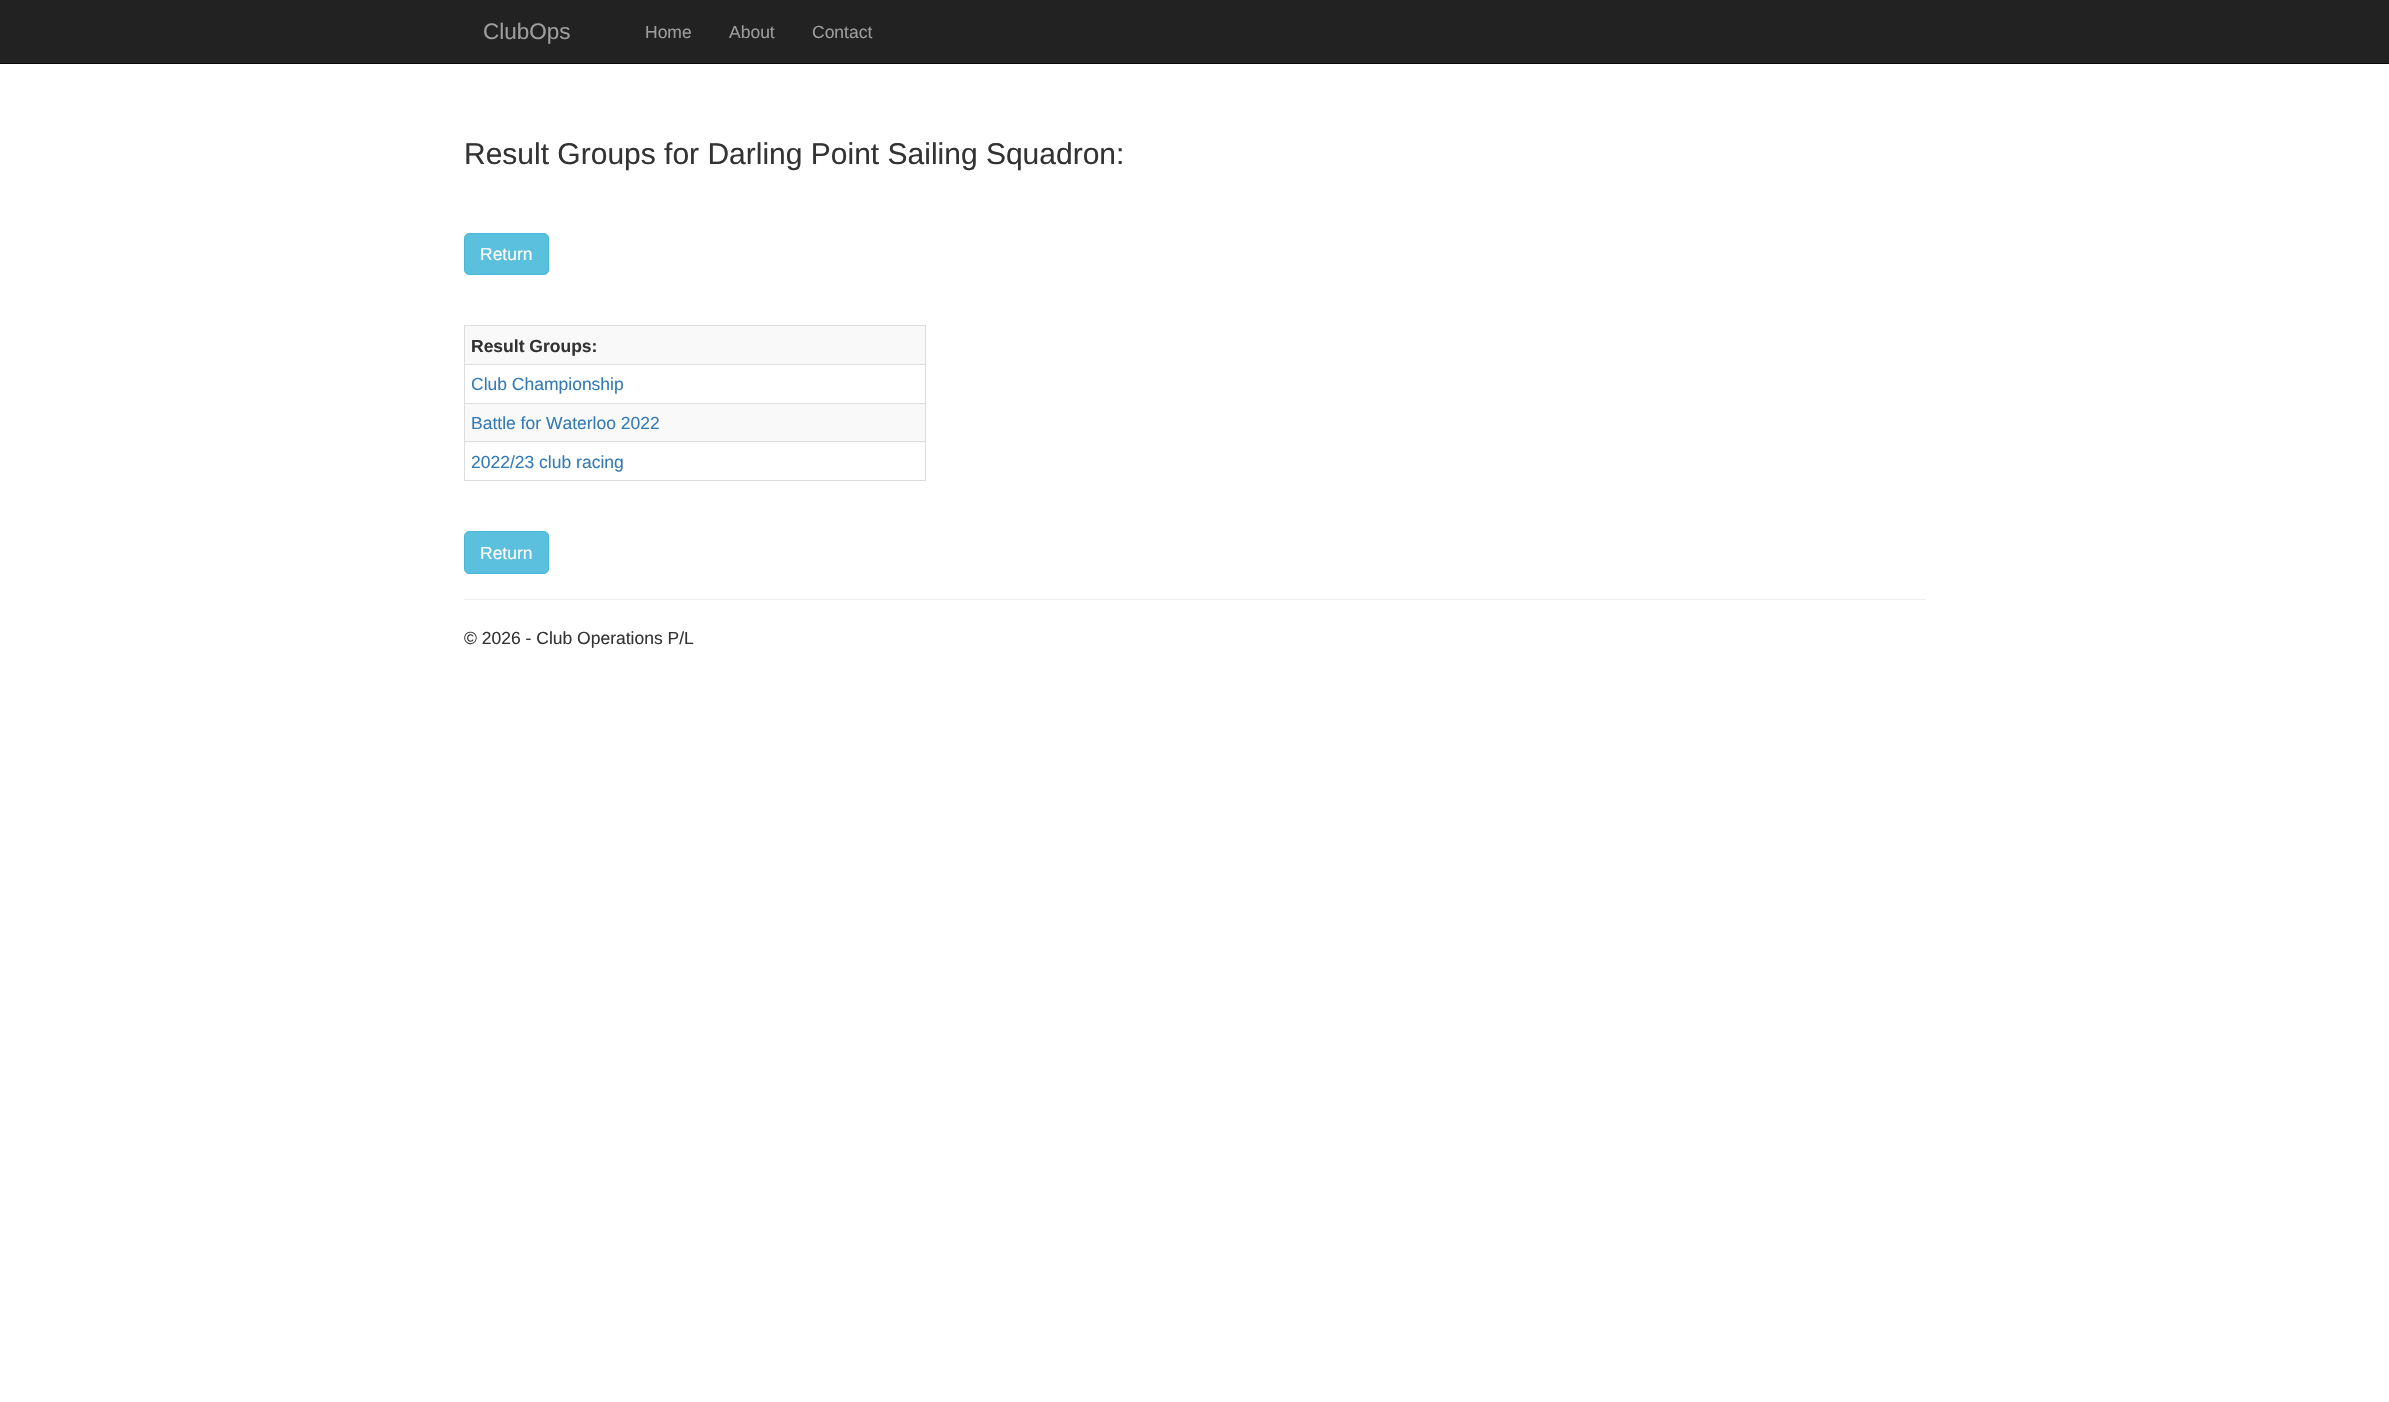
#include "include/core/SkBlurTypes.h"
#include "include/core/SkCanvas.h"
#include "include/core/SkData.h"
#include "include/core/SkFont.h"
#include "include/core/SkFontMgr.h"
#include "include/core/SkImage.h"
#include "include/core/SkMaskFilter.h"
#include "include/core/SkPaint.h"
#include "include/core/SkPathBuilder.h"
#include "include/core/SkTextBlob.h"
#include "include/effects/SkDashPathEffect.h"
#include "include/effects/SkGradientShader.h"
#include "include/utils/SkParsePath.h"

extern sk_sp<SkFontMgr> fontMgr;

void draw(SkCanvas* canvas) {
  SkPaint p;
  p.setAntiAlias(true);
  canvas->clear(SK_ColorWHITE);
  p.setColor(SkColorSetRGB(34, 34, 34));
  canvas->drawRect(SkRect::MakeLTRB(0, 0, 2389, 63), p);
  p.setColor(SkColorSetRGB(8, 8, 8));
  canvas->drawRect(SkRect::MakeLTRB(0, 63, 2389, 64), p);
  p.setColor(SkColorSetRGB(91, 192, 222));
  canvas->drawRoundRect(SkRect::MakeLTRB(464.5f, 233.5f, 548.5f, 274.5f), 4.5f, 4.5f, p);
  p.setStyle(SkPaint::kStroke_Style);
  p.setStrokeWidth(1);
  p.setColor(SkColorSetRGB(70, 184, 218));
  canvas->drawRoundRect(SkRect::MakeLTRB(464.5f, 233.5f, 548.5f, 274.5f), 4.5f, 4.5f, p);
  p.setStyle(SkPaint::kFill_Style);
  p.setColor(SkColorSetRGB(221, 221, 221));
  canvas->drawRect(SkRect::MakeLTRB(464, 325, 926, 326), p);
  canvas->drawRect(SkRect::MakeLTRB(925, 325, 926, 481), p);
  canvas->drawRect(SkRect::MakeLTRB(464, 480, 926, 481), p);
  canvas->drawRect(SkRect::MakeLTRB(464, 325, 465, 481), p);
  p.setColor(SkColorSetRGB(249, 249, 249));
  canvas->drawRect(SkRect::MakeLTRB(465, 326, 925, 364), p);
  p.setColor(SkColorSetRGB(221, 221, 221));
  canvas->drawRect(SkRect::MakeLTRB(464, 364, 926, 365), p);
  p.setColor(SkColorSetRGB(249, 249, 249));
  canvas->drawRect(SkRect::MakeLTRB(465, 404, 925, 443), p);
  p.setColor(SkColorSetRGB(221, 221, 221));
  canvas->drawRect(SkRect::MakeLTRB(464, 403, 926, 404), p);
  canvas->drawRect(SkRect::MakeLTRB(464, 441, 926, 442), p);
  p.setColor(SkColorSetRGB(91, 192, 222));
  canvas->drawRoundRect(SkRect::MakeLTRB(464.5f, 531.5f, 548.5f, 573.5f), 4.5f, 4.5f, p);
  p.setStyle(SkPaint::kStroke_Style);
  p.setColor(SkColorSetRGB(70, 184, 218));
  canvas->drawRoundRect(SkRect::MakeLTRB(464.5f, 531.5f, 548.5f, 573.5f), 4.5f, 4.5f, p);
  p.setStyle(SkPaint::kFill_Style);
  p.setColor(SkColorSetRGB(238, 238, 238));
  canvas->drawRect(SkRect::MakeLTRB(464, 599, 1926, 600), p);
  SkFont font1(fontMgr->matchFamilyStyle("Liberation Sans", SkFontStyle::Normal()), 22.5f);
  font1.setSubpixel(true);
  p.setColor(SkColorSetRGB(157, 157, 157));
  canvas->drawString("ClubOps", 483, 39, font1, p);
  SkFont font2(fontMgr->matchFamilyStyle("Liberation Sans", SkFontStyle::Normal()), 17.5f);
  font2.setSubpixel(true);
  canvas->drawString("Home", 645, 38, font2, p);
  canvas->drawString("About", 729, 38, font2, p);
  canvas->drawString("Contact", 812, 38, font2, p);
  SkFont font3(fontMgr->matchFamilyStyle("Liberation Sans", SkFontStyle::Normal()), 30);
  font3.setSubpixel(true);
  p.setColor(SkColorSetRGB(51, 51, 51));
  canvas->drawString("Result Groups for Darling Point Sailing Squadron:", 464, 164, font3, p);
  p.setColor(SK_ColorWHITE);
  canvas->drawString("Return", 480, 260, font2, p);
  SkFont font4(fontMgr->matchFamilyStyle("Liberation Sans", SkFontStyle::Bold()), 17.5f);
  font4.setSubpixel(true);
  p.setColor(SkColorSetRGB(51, 51, 51));
  canvas->drawString("Result Groups:", 471, 352, font4, p);
  p.setColor(SkColorSetRGB(51, 122, 183));
  canvas->drawString("Club Championship", 471, 390, font2, p);
  canvas->drawString("Battle for Waterloo 2022", 471, 429, font2, p);
  canvas->drawString("2022/23 club racing", 471, 468, font2, p);
  p.setColor(SK_ColorWHITE);
  canvas->drawString("Return", 480, 559, font2, p);
  p.setColor(SkColorSetRGB(51, 51, 51));
  canvas->drawString("© 2026 - Club Operations P/L", 464, 644, font2, p);
}
